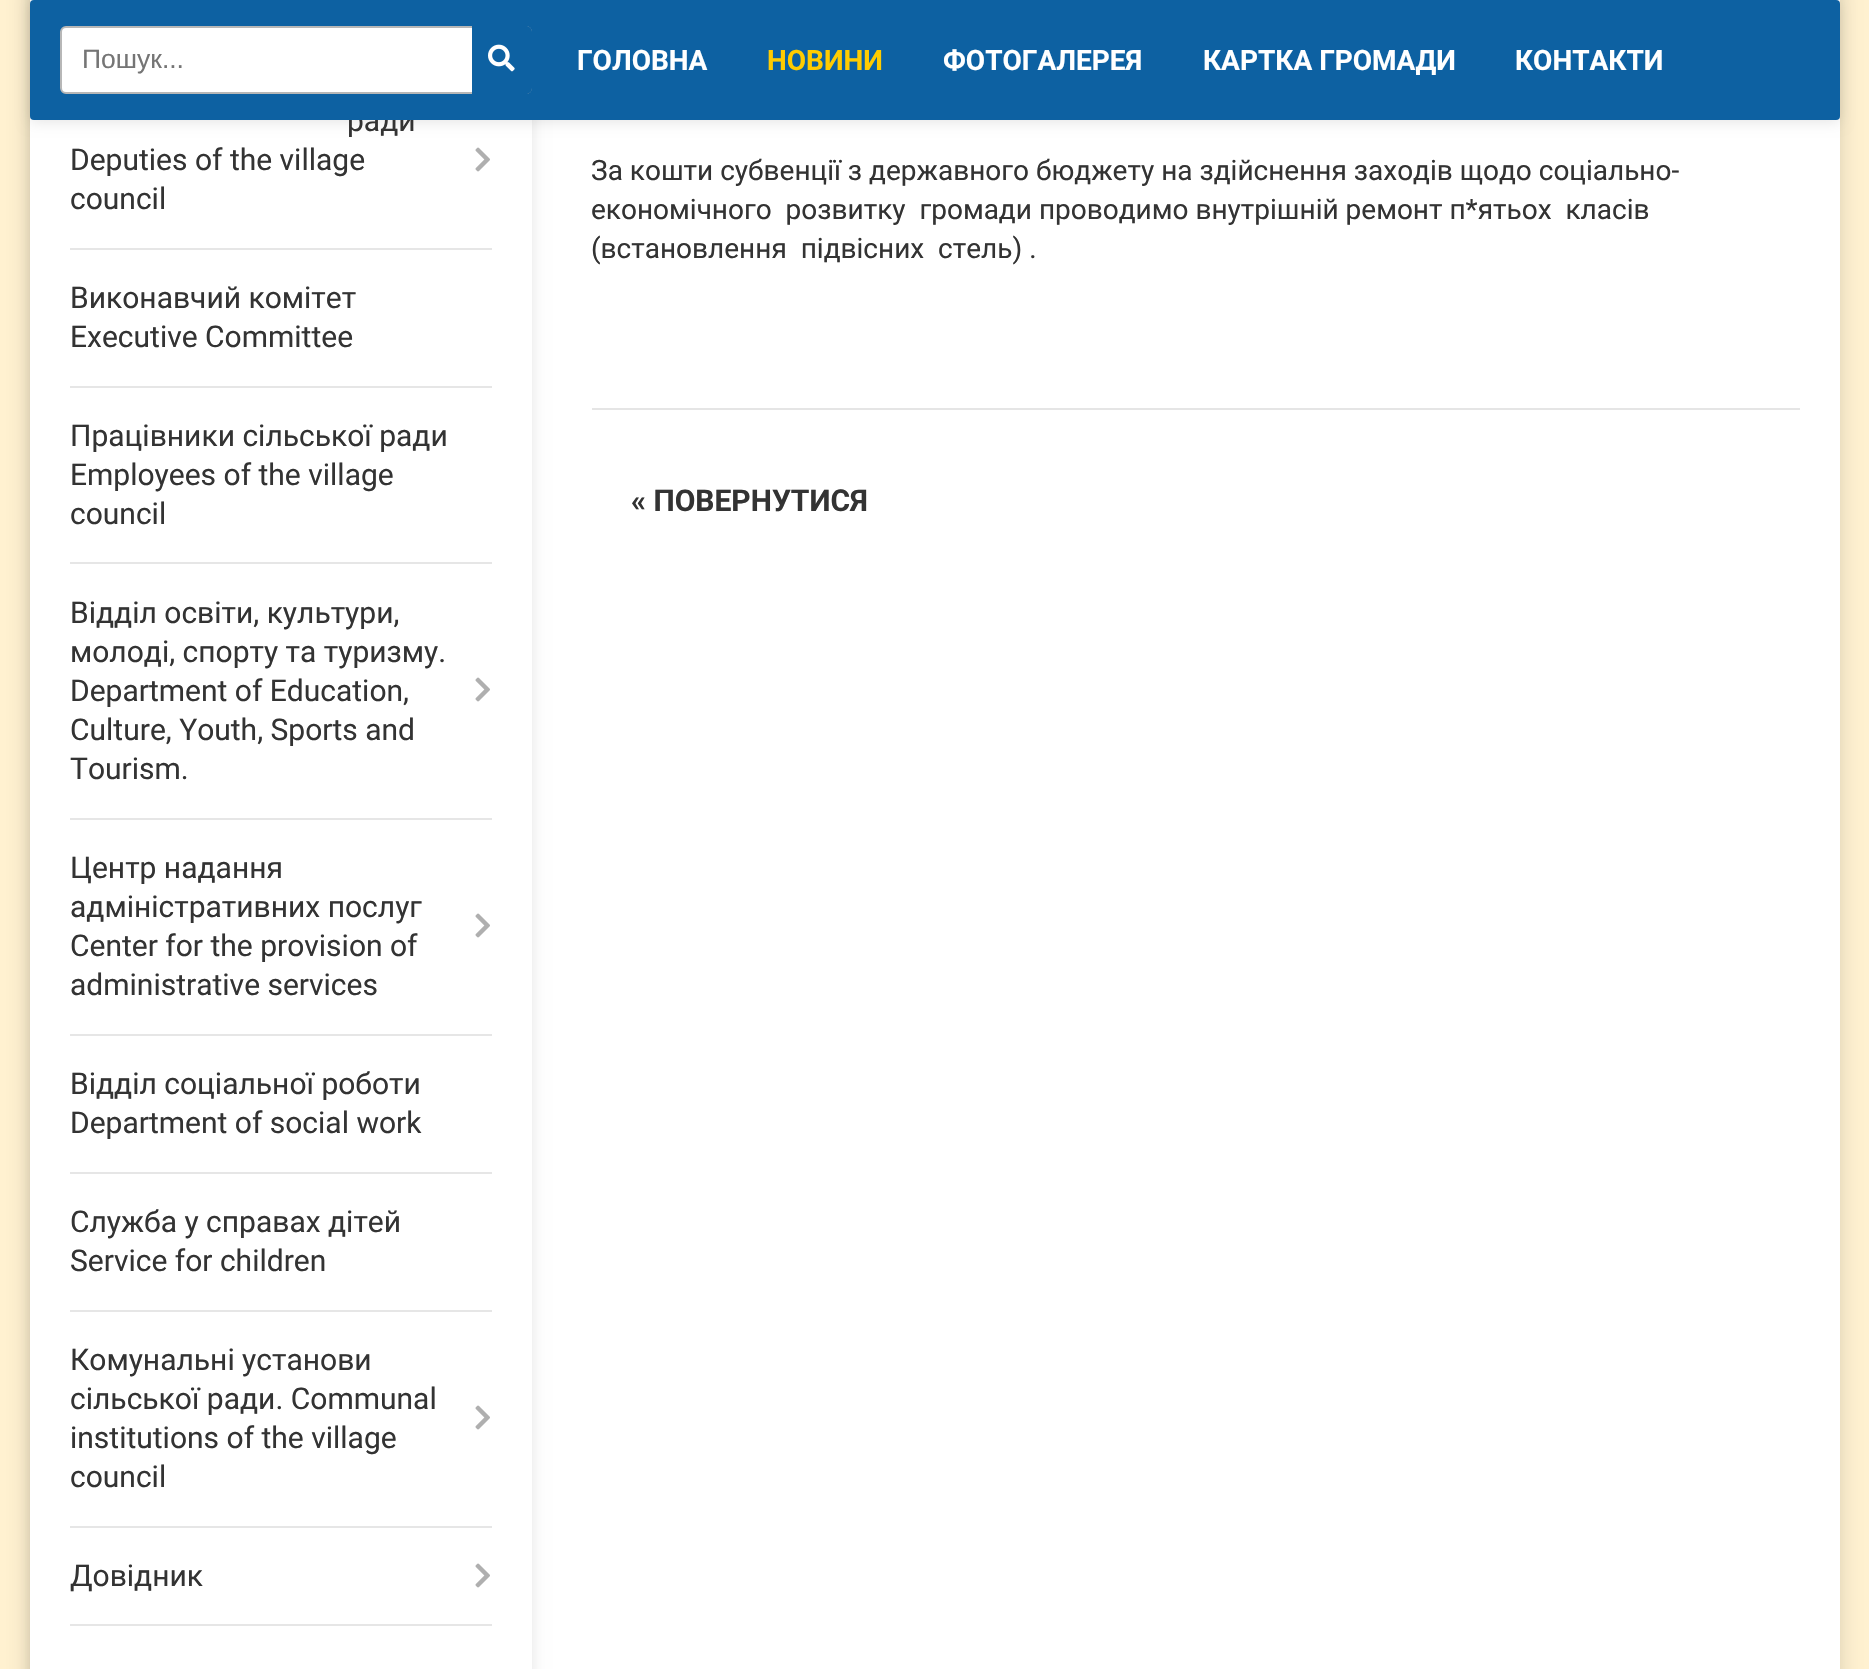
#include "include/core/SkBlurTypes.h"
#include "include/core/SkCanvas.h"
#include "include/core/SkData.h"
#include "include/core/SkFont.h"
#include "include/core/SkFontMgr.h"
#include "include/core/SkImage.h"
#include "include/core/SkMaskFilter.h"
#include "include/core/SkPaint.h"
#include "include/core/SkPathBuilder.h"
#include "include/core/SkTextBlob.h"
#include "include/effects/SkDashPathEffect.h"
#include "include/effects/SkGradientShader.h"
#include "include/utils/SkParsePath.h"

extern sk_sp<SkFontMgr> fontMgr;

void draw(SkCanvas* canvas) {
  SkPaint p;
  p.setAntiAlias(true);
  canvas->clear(SK_ColorWHITE);
  {
    const SkColor colors[] = {SK_ColorWHITE, SkColorSetRGB(255, 241, 208)};
    const float stops[] = {0.04f, 0.06f};
    const SkPoint ends[] = {{935, -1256}, {935, 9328}};
    p.setShader(SkGradientShader::MakeLinear(ends, colors, stops, 2, SkTileMode::kClamp));
    p.setAlpha(255);
  }
  canvas->drawRect(SkRect::MakeLTRB(0, 0, 1869, 1669), p);
  p.setShader(nullptr);
  p.setColor(SkColorSetARGB(38, 0, 0, 0));
  p.setMaskFilter(SkMaskFilter::MakeBlur(kNormal_SkBlurStyle, 10));
  canvas->drawRoundRect(SkRect::MakeLTRB(30, -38, 1840, 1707), 8, 8, p);
  p.setMaskFilter(nullptr);
  p.setColor(SK_ColorWHITE);
  canvas->drawRect(SkRect::MakeLTRB(30, 0, 1840, 1669), p);
  canvas->save();
  canvas->clipPath(SkPathBuilder(SkPathFillType::kEvenOdd).moveTo(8, 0).lineTo(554, 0).lineTo(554, 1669).lineTo(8, 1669).close().moveTo(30, -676).lineTo(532, -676).lineTo(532, 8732).lineTo(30, 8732).close().detach(), true);
  p.setColor(SkColorSetARGB(26, 0, 0, 0));
  p.setMaskFilter(SkMaskFilter::MakeBlur(kNormal_SkBlurStyle, 7));
  canvas->drawRect(SkRect::MakeLTRB(30, -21, 532, 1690), p);
  p.setMaskFilter(nullptr);
  canvas->restore();
  p.setColor(SkColorSetRGB(230, 230, 230));
  canvas->drawRect(SkRect::MakeLTRB(70, 248, 492, 250), p);
  canvas->drawImageRect(SkImages::DeferredFromEncodedData(SkData::MakeFromFileName("images/1.png")), SkRect::MakeLTRB(475, 147, 490, 172), SkSamplingOptions());
  canvas->drawRect(SkRect::MakeLTRB(70, 386, 492, 388), p);
  canvas->drawRect(SkRect::MakeLTRB(70, 562, 492, 564), p);
  canvas->drawRect(SkRect::MakeLTRB(70, 818, 492, 820), p);
  canvas->drawImageRect(SkImages::DeferredFromEncodedData(SkData::MakeFromFileName("images/1.png")), SkRect::MakeLTRB(475, 677, 490, 702), SkSamplingOptions());
  canvas->drawRect(SkRect::MakeLTRB(70, 1034, 492, 1036), p);
  canvas->drawImageRect(SkImages::DeferredFromEncodedData(SkData::MakeFromFileName("images/1.png")), SkRect::MakeLTRB(475, 913, 490, 938), SkSamplingOptions());
  canvas->drawRect(SkRect::MakeLTRB(70, 1172, 492, 1174), p);
  canvas->drawRect(SkRect::MakeLTRB(70, 1310, 492, 1312), p);
  canvas->drawRect(SkRect::MakeLTRB(70, 1526, 492, 1528), p);
  canvas->drawImageRect(SkImages::DeferredFromEncodedData(SkData::MakeFromFileName("images/1.png")), SkRect::MakeLTRB(475, 1405, 490, 1430), SkSamplingOptions());
  canvas->drawRect(SkRect::MakeLTRB(70, 1624, 492, 1626), p);
  canvas->drawImageRect(SkImages::DeferredFromEncodedData(SkData::MakeFromFileName("images/1.png")), SkRect::MakeLTRB(475, 1563, 490, 1588), SkSamplingOptions());
  p.setColor(SkColorSetARGB(26, 0, 0, 0));
  p.setMaskFilter(SkMaskFilter::MakeBlur(kNormal_SkBlurStyle, 7));
  canvas->drawRoundRect(SkRect::MakeLTRB(30, 2, 1840, 122), 4, 4, p);
  p.setMaskFilter(nullptr);
  p.setColor(SkColorSetRGB(229, 229, 229));
  canvas->drawRect(SkRect::MakeLTRB(592, 408, 1800, 410), p);
  SkFont font1(fontMgr->matchFamilyStyle("Roboto", SkFontStyle::Normal()), 30);
  font1.setSubpixel(true);
  p.setColor(SkColorSetRGB(51, 51, 51));
  canvas->drawString("ради", 347, 131, font1, p);
  canvas->drawString("Deputies of the village", 70, 170, font1, p);
  canvas->drawString("council", 70, 209, font1, p);
  canvas->drawString("Виконавчий комітет", 70, 308, font1, p);
  canvas->drawString("Executive Committee", 70, 347, font1, p);
  canvas->drawString("Працівники сільської ради", 70, 446, font1, p);
  canvas->drawString("Employees of the village", 70, 485, font1, p);
  canvas->drawString("council", 70, 524, font1, p);
  canvas->drawString("Відділ освіти, культури,", 70, 623, font1, p);
  canvas->drawString("молоді, спорту та туризму.", 70, 662, font1, p);
  canvas->drawString("Department of Education,", 70, 701, font1, p);
  canvas->drawString("Culture, Youth, Sports and", 70, 740, font1, p);
  canvas->drawString("Tourism.", 70, 779, font1, p);
  canvas->drawString("Центр надання", 70, 878, font1, p);
  canvas->drawString("адміністративних послуг", 70, 917, font1, p);
  canvas->drawString("Center for the provision of", 70, 956, font1, p);
  canvas->drawString("administrative services", 70, 995, font1, p);
  canvas->drawString("Відділ соціальної роботи", 70, 1094, font1, p);
  canvas->drawString("Department of social work", 70, 1133, font1, p);
  canvas->drawString("Служба у справах дітей", 70, 1232, font1, p);
  canvas->drawString("Service for children", 70, 1271, font1, p);
  canvas->drawString("Комунальні установи", 70, 1370, font1, p);
  canvas->drawString("сільської ради. Communal", 70, 1409, font1, p);
  canvas->drawString("institutions of the village", 70, 1448, font1, p);
  canvas->drawString("council", 70, 1487, font1, p);
  canvas->drawString("Довідник", 70, 1586, font1, p);
  p.setColor(SkColorSetRGB(13, 97, 162));
  canvas->drawRoundRect(SkRect::MakeLTRB(30, 0, 1840, 120), 4, 4, p);
  SkFont font2(fontMgr->matchFamilyStyle("Roboto", SkFontStyle::Bold()), 28);
  font2.setSubpixel(true);
  p.setColor(SK_ColorWHITE);
  canvas->drawString("ГОЛОВНА", 577, 70, font2, p);
  p.setColor(SkColorSetRGB(255, 204, 0));
  canvas->drawString("НОВИНИ", 767, 70, font2, p);
  p.setColor(SK_ColorWHITE);
  canvas->drawString("ФОТОГАЛЕРЕЯ", 943, 70, font2, p);
  canvas->drawString("КАРТКА ГРОМАДИ", 1203, 70, font2, p);
  canvas->drawString("КОНТАКТИ", 1515, 70, font2, p);
  SkFont font3(fontMgr->matchFamilyStyle("Roboto", SkFontStyle::Normal()), 28);
  font3.setSubpixel(true);
  p.setColor(SkColorSetRGB(51, 51, 51));
  canvas->drawString("За кошти субвенції з державного бюджету на здійснення заходів щодо соціально-", 591, 180, font3, p);
  canvas->drawString("економічного  розвитку  громади проводимо внутрішній ремонт п*ятьох  класів", 591, 219, font3, p);
  canvas->drawString("(встановлення  підвісних  стель) .", 591, 258, font3, p);
  SkFont font4(fontMgr->matchFamilyStyle("Roboto", SkFontStyle::Bold()), 30);
  font4.setSubpixel(true);
  canvas->drawString("« ПОВЕРНУТИСЯ", 631, 511, font4, p);
  p.setColor(SK_ColorWHITE);
  canvas->drawRoundRect(SkRect::MakeLTRB(61, 27, 531, 93), 5, 5, p);
  p.setStyle(SkPaint::kStroke_Style);
  p.setStrokeWidth(2);
  p.setColor(SkColorSetRGB(183, 183, 183));
  canvas->drawRoundRect(SkRect::MakeLTRB(61, 27, 531, 93), 5, 5, p);
  SkFont font5(fontMgr->matchFamilyStyle("Liberation Sans", SkFontStyle::Normal()), 26.5f);
  font5.setSubpixel(true);
  p.setStyle(SkPaint::kFill_Style);
  p.setColor(SkColorSetRGB(117, 117, 117));
  canvas->drawString("Пошук...", 82, 68, font5, p);
  p.setColor(SkColorSetRGB(13, 97, 162));
  canvas->drawPath(SkPathBuilder().moveTo(472, 26).lineTo(526, 26).cubicTo(529.5f, 26, 532, 28.5f, 532, 32).lineTo(532, 88).cubicTo(532, 91.5f, 529.5f, 94, 526, 94).lineTo(472, 94).close().detach(), p);
  canvas->drawImageRect(SkImages::DeferredFromEncodedData(SkData::MakeFromFileName("images/2.png")), SkRect::MakeLTRB(488, 44, 515, 72), SkSamplingOptions());
}
